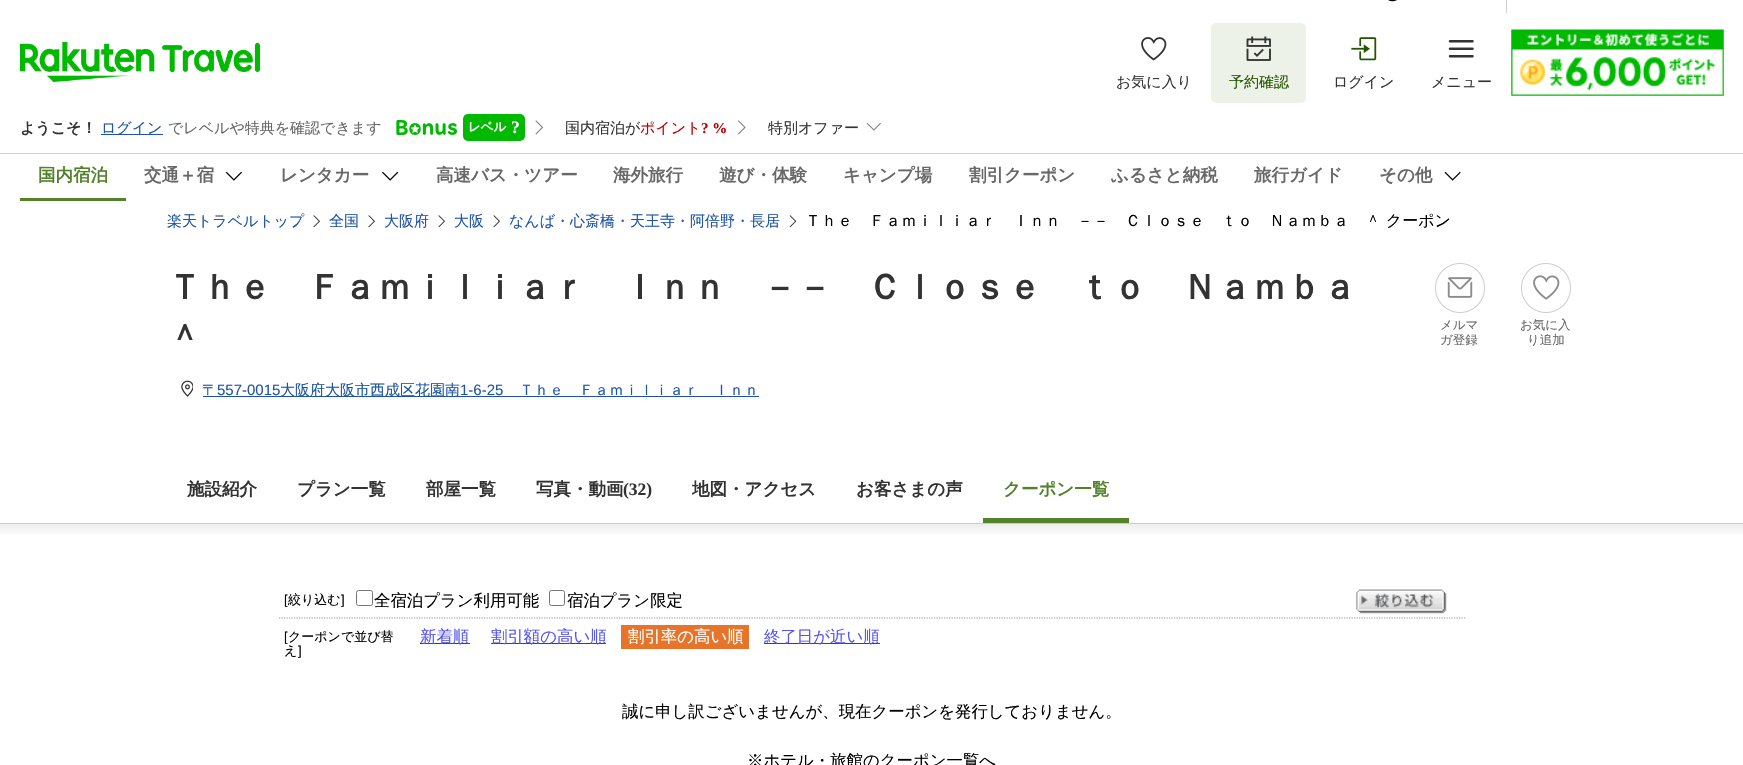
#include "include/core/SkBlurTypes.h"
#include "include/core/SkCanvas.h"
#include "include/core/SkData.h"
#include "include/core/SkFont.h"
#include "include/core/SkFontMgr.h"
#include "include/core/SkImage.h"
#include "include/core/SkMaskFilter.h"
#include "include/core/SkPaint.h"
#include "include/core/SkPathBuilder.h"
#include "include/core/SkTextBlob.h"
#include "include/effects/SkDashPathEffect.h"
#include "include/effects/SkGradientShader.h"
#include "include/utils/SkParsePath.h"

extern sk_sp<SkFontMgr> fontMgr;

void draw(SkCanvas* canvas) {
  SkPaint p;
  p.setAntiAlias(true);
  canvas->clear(SK_ColorWHITE);
  canvas->drawImageRect(SkImages::DeferredFromEncodedData(SkData::MakeFromFileName("images/1.png")), SkRect::MakeLTRB(1388, 0, 1397, 2), SkSamplingOptions());
  p.setColor(SkColorSetRGB(209, 209, 209));
  canvas->drawRect(SkRect::MakeLTRB(1506, 0, 1507, 13), p);
  canvas->drawImageRect(SkImages::DeferredFromEncodedData(SkData::MakeFromFileName("images/2.png")), SkRect::MakeLTRB(20, 42, 260, 82), SkSamplingOptions());
  canvas->drawImageRect(SkImages::DeferredFromEncodedData(SkData::MakeFromFileName("images/3.png")), SkRect::MakeLTRB(1141, 37, 1167, 61), SkSamplingOptions());
  p.setColor(SkColorSetRGB(237, 242, 233));
  canvas->drawRoundRect(SkRect::MakeLTRB(1211, 23, 1306, 103), 5, 5, p);
  canvas->drawImageRect(SkImages::DeferredFromEncodedData(SkData::MakeFromFileName("images/4.png")), SkRect::MakeLTRB(1246, 36, 1271, 61), SkSamplingOptions());
  canvas->drawImageRect(SkImages::DeferredFromEncodedData(SkData::MakeFromFileName("images/5.png")), SkRect::MakeLTRB(1351, 37, 1377, 61), SkSamplingOptions());
  canvas->drawImageRect(SkImages::DeferredFromEncodedData(SkData::MakeFromFileName("images/6.png")), SkRect::MakeLTRB(1448, 40, 1474, 58), SkSamplingOptions());
  canvas->drawImageRect(SkImages::DeferredFromEncodedData(SkData::MakeFromFileName("images/7.png")), SkRect::MakeLTRB(1511, 29, 1724, 96), SkSamplingOptions());
  p.setColor(SkColorSetRGB(29, 84, 167));
  canvas->drawRect(SkRect::MakeLTRB(101, 134, 163, 135), p);
  canvas->drawImageRect(SkImages::DeferredFromEncodedData(SkData::MakeFromFileName("images/8.png")), SkRect::MakeLTRB(396, 120, 457, 135), SkSamplingOptions());
  p.setColor(SkColorSetRGB(0, 185, 0));
  canvas->drawRoundRect(SkRect::MakeLTRB(463, 114, 525, 141), 5, 5, p);
  canvas->drawImageRect(SkImages::DeferredFromEncodedData(SkData::MakeFromFileName("images/9.png")), SkRect::MakeLTRB(535, 120, 544, 135), SkSamplingOptions());
  canvas->drawImageRect(SkImages::DeferredFromEncodedData(SkData::MakeFromFileName("images/10.png")), SkRect::MakeLTRB(738, 120, 746, 135), SkSamplingOptions());
  canvas->drawImageRect(SkImages::DeferredFromEncodedData(SkData::MakeFromFileName("images/11.png")), SkRect::MakeLTRB(866, 123, 881, 131), SkSamplingOptions());
  p.setColor(SkColorSetRGB(209, 209, 209));
  canvas->drawRect(SkRect::MakeLTRB(0, 153, 1743, 154), p);
  p.setColor(SkColorSetRGB(84, 130, 43));
  canvas->drawRect(SkRect::MakeLTRB(20, 198, 126, 201), p);
  canvas->drawImageRect(SkImages::DeferredFromEncodedData(SkData::MakeFromFileName("images/12.png")), SkRect::MakeLTRB(225, 171, 242, 181), SkSamplingOptions());
  canvas->drawImageRect(SkImages::DeferredFromEncodedData(SkData::MakeFromFileName("images/13.png")), SkRect::MakeLTRB(382, 171, 399, 181), SkSamplingOptions());
  canvas->drawImageRect(SkImages::DeferredFromEncodedData(SkData::MakeFromFileName("images/14.png")), SkRect::MakeLTRB(1444, 171, 1461, 181), SkSamplingOptions());
  canvas->drawImageRect(SkImages::DeferredFromEncodedData(SkData::MakeFromFileName("images/15.png")), SkRect::MakeLTRB(313, 215, 320, 228), SkSamplingOptions());
  canvas->drawImageRect(SkImages::DeferredFromEncodedData(SkData::MakeFromFileName("images/15.png")), SkRect::MakeLTRB(368, 215, 375, 228), SkSamplingOptions());
  canvas->drawImageRect(SkImages::DeferredFromEncodedData(SkData::MakeFromFileName("images/15.png")), SkRect::MakeLTRB(438, 215, 445, 228), SkSamplingOptions());
  canvas->drawImageRect(SkImages::DeferredFromEncodedData(SkData::MakeFromFileName("images/15.png")), SkRect::MakeLTRB(493, 215, 500, 228), SkSamplingOptions());
  canvas->drawImageRect(SkImages::DeferredFromEncodedData(SkData::MakeFromFileName("images/16.png")), SkRect::MakeLTRB(789, 215, 797, 228), SkSamplingOptions());
  canvas->drawImageRect(SkImages::DeferredFromEncodedData(SkData::MakeFromFileName("images/17.png")), SkRect::MakeLTRB(181, 380, 193, 397), SkSamplingOptions());
  p.setColor(SkColorSetRGB(29, 84, 167));
  canvas->drawRect(SkRect::MakeLTRB(203, 396, 759, 397), p);
  canvas->drawImageRect(SkImages::DeferredFromEncodedData(SkData::MakeFromFileName("images/18.png")), SkRect::MakeLTRB(1435, 263, 1485, 313), SkSamplingOptions());
  canvas->drawImageRect(SkImages::DeferredFromEncodedData(SkData::MakeFromFileName("images/19.png")), SkRect::MakeLTRB(1521, 263, 1571, 313), SkSamplingOptions());
  p.setColor(SkColorSetRGB(84, 130, 43));
  canvas->drawRect(SkRect::MakeLTRB(983, 518, 1129, 523), p);
  {
    const SkColor colors[] = {SK_ColorWHITE, SkColorSetRGB(237, 237, 237)};
    const float stops[] = {0, 1};
    const SkPoint ends[] = {{872, 536}, {872, 524}};
    p.setShader(SkGradientShader::MakeLinear(ends, colors, stops, 2, SkTileMode::kClamp));
    p.setAlpha(255);
  }
  canvas->drawRect(SkRect::MakeLTRB(0, 524, 1743, 534), p);
  p.setShader(nullptr);
  p.setColor(SkColorSetRGB(204, 204, 204));
  canvas->drawRect(SkRect::MakeLTRB(0, 523, 1743, 524), p);
  p.setStyle(SkPaint::kStroke_Style);
  p.setStrokeWidth(1.2f);
  p.setColor(SkColorSetRGB(153, 153, 153));
  p.setPathEffect(SkDashPathEffect::Make({{1.25f, 1.25f}}, 0));
  canvas->drawPath(SkPathBuilder().moveTo(279, 618).lineTo(1466, 618).detach(), p);
  p.setPathEffect(nullptr);
  p.setStrokeWidth(1);
  p.setColor(SkColorSetRGB(118, 118, 118));
  canvas->drawRoundRect(SkRect::MakeLTRB(356.5f, 590.5f, 372.5f, 605.5f), 2, 2, p);
  canvas->drawRoundRect(SkRect::MakeLTRB(549.5f, 590.5f, 564.5f, 605.5f), 2, 2, p);
  canvas->drawImageRect(SkImages::DeferredFromEncodedData(SkData::MakeFromFileName("images/20.png")), SkRect::MakeLTRB(1356, 589, 1447, 614), SkSamplingOptions());
  p.setStyle(SkPaint::kFill_Style);
  p.setColor(SkColorSetRGB(51, 51, 204));
  canvas->drawRect(SkRect::MakeLTRB(420, 643, 470, 644), p);
  canvas->drawRect(SkRect::MakeLTRB(491, 643, 606, 644), p);
  p.setColor(SkColorSetRGB(230, 117, 43));
  canvas->drawRect(SkRect::MakeLTRB(621, 625, 749, 649), p);
  p.setColor(SkColorSetRGB(51, 51, 204));
  canvas->drawRect(SkRect::MakeLTRB(764, 643, 880, 644), p);
  SkFont font1(fontMgr->matchFamilyStyle("WenQuanYi Zen Hei", SkFontStyle(500, SkFontStyle::kNormal_Width, SkFontStyle::kUpright_Slant)), 15);
  font1.setSubpixel(true);
  p.setColor(SkColorSetRGB(51, 51, 51));
  canvas->drawString("お気に入り", 1116, 87, font1, p);
  p.setColor(SkColorSetRGB(37, 85, 0));
  canvas->drawString("予約確認", 1229, 87, font1, p);
  p.setColor(SkColorSetRGB(51, 51, 51));
  canvas->drawString("ログイン", 1333, 87, font1, p);
  canvas->drawString("メニュー", 1431, 87, font1, p);
  SkFont font2(fontMgr->matchFamilyStyle("WenQuanYi Zen Hei", SkFontStyle::Bold()), 15);
  font2.setSubpixel(true);
  canvas->drawString("ようこそ！", 20, 133, font2, p);
  p.setColor(SkColorSetRGB(29, 84, 167));
  canvas->drawString("ログイン", 101, 133, font1, p);
  p.setColor(SkColorSetRGB(104, 104, 104));
  canvas->drawString("でレベルや特典を確認できます", 168, 133, font1, p);
  SkFont font3(fontMgr->matchFamilyStyle("WenQuanYi Zen Hei", SkFontStyle::Bold()), 12.5f);
  font3.setSubpixel(true);
  p.setColor(SK_ColorWHITE);
  canvas->drawString("レベル", 468, 131, font3, p);
  SkFont font4(fontMgr->matchFamilyStyle("Liberation Serif", SkFontStyle::Bold()), 17.5f);
  font4.setSubpixel(true);
  canvas->drawString("?", 511, 133, font4, p);
  p.setColor(SkColorSetRGB(51, 51, 51));
  canvas->drawString("国内宿泊が", 565, 133, font1, p);
  p.setColor(SkColorSetRGB(191, 0, 0));
  canvas->drawString("ポイント", 640, 133, font1, p);
  SkFont font5(fontMgr->matchFamilyStyle("Liberation Serif", SkFontStyle::Bold()), 15);
  font5.setSubpixel(true);
  canvas->drawString("? %", 701, 133, font5, p);
  p.setColor(SkColorSetRGB(51, 51, 51));
  canvas->drawString("特別オファー", 768, 133, font1, p);
  SkFont font6(fontMgr->matchFamilyStyle("WenQuanYi Zen Hei", SkFontStyle::Bold()), 17.5f);
  font6.setSubpixel(true);
  p.setColor(SkColorSetRGB(84, 130, 43));
  canvas->drawString("国内宿泊", 38, 181, font6, p);
  p.setColor(SkColorSetRGB(104, 104, 104));
  canvas->drawString("交通＋宿", 144, 181, font6, p);
  canvas->drawString("レンタカー", 280, 181, font6, p);
  canvas->drawString("高速バス・ツアー", 436, 181, font6, p);
  canvas->drawString("海外旅行", 613, 181, font6, p);
  canvas->drawString("遊び・体験", 719, 181, font6, p);
  canvas->drawString("キャンプ場", 843, 181, font6, p);
  canvas->drawString("割引クーポン", 969, 181, font6, p);
  canvas->drawString("ふるさと納税", 1111, 181, font6, p);
  canvas->drawString("旅行ガイド", 1254, 181, font6, p);
  canvas->drawString("その他", 1379, 181, font6, p);
  p.setColor(SkColorSetRGB(29, 84, 167));
  canvas->drawString("楽天トラベルトップ", 167, 226, font1, p);
  canvas->drawString("全国", 329, 226, font1, p);
  canvas->drawString("大阪府", 384, 226, font1, p);
  canvas->drawString("大阪", 454, 226, font1, p);
  canvas->drawString("なんば・心斎橋・天王寺・阿倍野・長居", 509, 226, font1, p);
  SkFont font7(fontMgr->matchFamilyStyle("WenQuanYi Zen Hei", SkFontStyle(500, SkFontStyle::kNormal_Width, SkFontStyle::kUpright_Slant)), 16);
  font7.setSubpixel(true);
  p.setColor(SK_ColorBLACK);
  canvas->drawString("Ｔｈｅ　Ｆａｍｉｌｉａｒ　Ｉｎｎ　－－　Ｃｌｏｓｅ　ｔｏ　Ｎａｍｂａ　＾ クーポン", 805, 226, font7, p);
  SkFont font8(fontMgr->matchFamilyStyle("WenQuanYi Zen Hei", SkFontStyle::Bold()), 35);
  font8.setSubpixel(true);
  p.setColor(SkColorSetRGB(51, 51, 51));
  canvas->drawString("Ｔｈｅ　Ｆａｍｉｌｉａｒ　Ｉｎｎ　－－　Ｃｌｏｓｅ　ｔｏ　Ｎａｍｂａ", 167, 299, font8, p);
  canvas->drawString("＾", 167, 349, font8, p);
  p.setColor(SkColorSetRGB(29, 84, 167));
  canvas->drawString("〒", 202, 395, font1, p);
  SkFont font9(fontMgr->matchFamilyStyle("Liberation Sans", SkFontStyle::Normal()), 15);
  font9.setSubpixel(true);
  canvas->drawString("557-0015", 217, 395, font9, p);
  canvas->drawString("大阪府大阪市西成区花園南", 280, 395, font1, p);
  canvas->drawString("1-6-25", 460, 395, font9, p);
  canvas->drawString("Ｔｈｅ　Ｆａｍｉｌｉａｒ　Ｉｎｎ", 519, 395, font1, p);
  SkFont font10(fontMgr->matchFamilyStyle("WenQuanYi Zen Hei", SkFontStyle(500, SkFontStyle::kNormal_Width, SkFontStyle::kUpright_Slant)), 12.5f);
  font10.setSubpixel(true);
  p.setColor(SkColorSetRGB(104, 104, 104));
  canvas->drawString("メルマ", 1440, 329, font10, p);
  canvas->drawString("ガ登録", 1440, 344, font10, p);
  canvas->drawString("お気に入", 1520, 329, font10, p);
  canvas->drawString("り追加", 1527, 344, font10, p);
  p.setColor(SkColorSetRGB(51, 51, 51));
  canvas->drawString("施設紹介", 187, 495, font6, p);
  canvas->drawString("プラン一覧", 297, 495, font6, p);
  canvas->drawString("部屋一覧", 426, 495, font6, p);
  canvas->drawString("写真・動画", 536, 495, font6, p);
  canvas->drawString("(32)", 623, 495, font4, p);
  canvas->drawString("地図・アクセス", 692, 495, font6, p);
  canvas->drawString("お客さまの声", 856, 495, font6, p);
  p.setColor(SkColorSetRGB(84, 130, 43));
  canvas->drawString("クーポン一覧", 1003, 495, font6, p);
  SkFont font11(fontMgr->matchFamilyStyle("Liberation Sans", SkFontStyle::Normal()), 13);
  font11.setSubpixel(true);
  p.setColor(SK_ColorBLACK);
  canvas->drawString("[", 284, 604, font11, p);
  SkFont font12(fontMgr->matchFamilyStyle("WenQuanYi Zen Hei", SkFontStyle(500, SkFontStyle::kNormal_Width, SkFontStyle::kUpright_Slant)), 13);
  font12.setSubpixel(true);
  canvas->drawString("絞り込む", 288, 604, font12, p);
  canvas->drawString("]", 341, 604, font11, p);
  SkFont font13(fontMgr->matchFamilyStyle("WenQuanYi Zen Hei", SkFontStyle(500, SkFontStyle::kNormal_Width, SkFontStyle::kUpright_Slant)), 16.4f);
  font13.setSubpixel(true);
  canvas->drawString("全宿泊プラン利用可能", 374, 606, font13, p);
  canvas->drawString("宿泊プラン限定", 567, 606, font13, p);
  canvas->drawString("[", 284, 641, font11, p);
  canvas->drawString("クーポンで並び替", 288, 641, font12, p);
  canvas->drawString("え", 284, 655, font12, p);
  canvas->drawString("]", 298, 655, font11, p);
  p.setColor(SkColorSetRGB(84, 84, 246));
  canvas->drawString("新着順", 420, 642, font13, p);
  canvas->drawString("割引額の高い順", 491, 642, font13, p);
  p.setColor(SK_ColorWHITE);
  canvas->drawString("割引率の高い順", 628, 642, font13, p);
  p.setColor(SkColorSetRGB(84, 84, 246));
  canvas->drawString("終了日が近い順", 764, 642, font13, p);
  p.setColor(SK_ColorBLACK);
  canvas->drawString("誠に申し訳ございませんが、現在クーポンを発行しておりません。", 622, 717, font13, p);
  canvas->drawString("※ホテル・旅館のクーポン一覧へ", 747, 766, font13, p);
}
